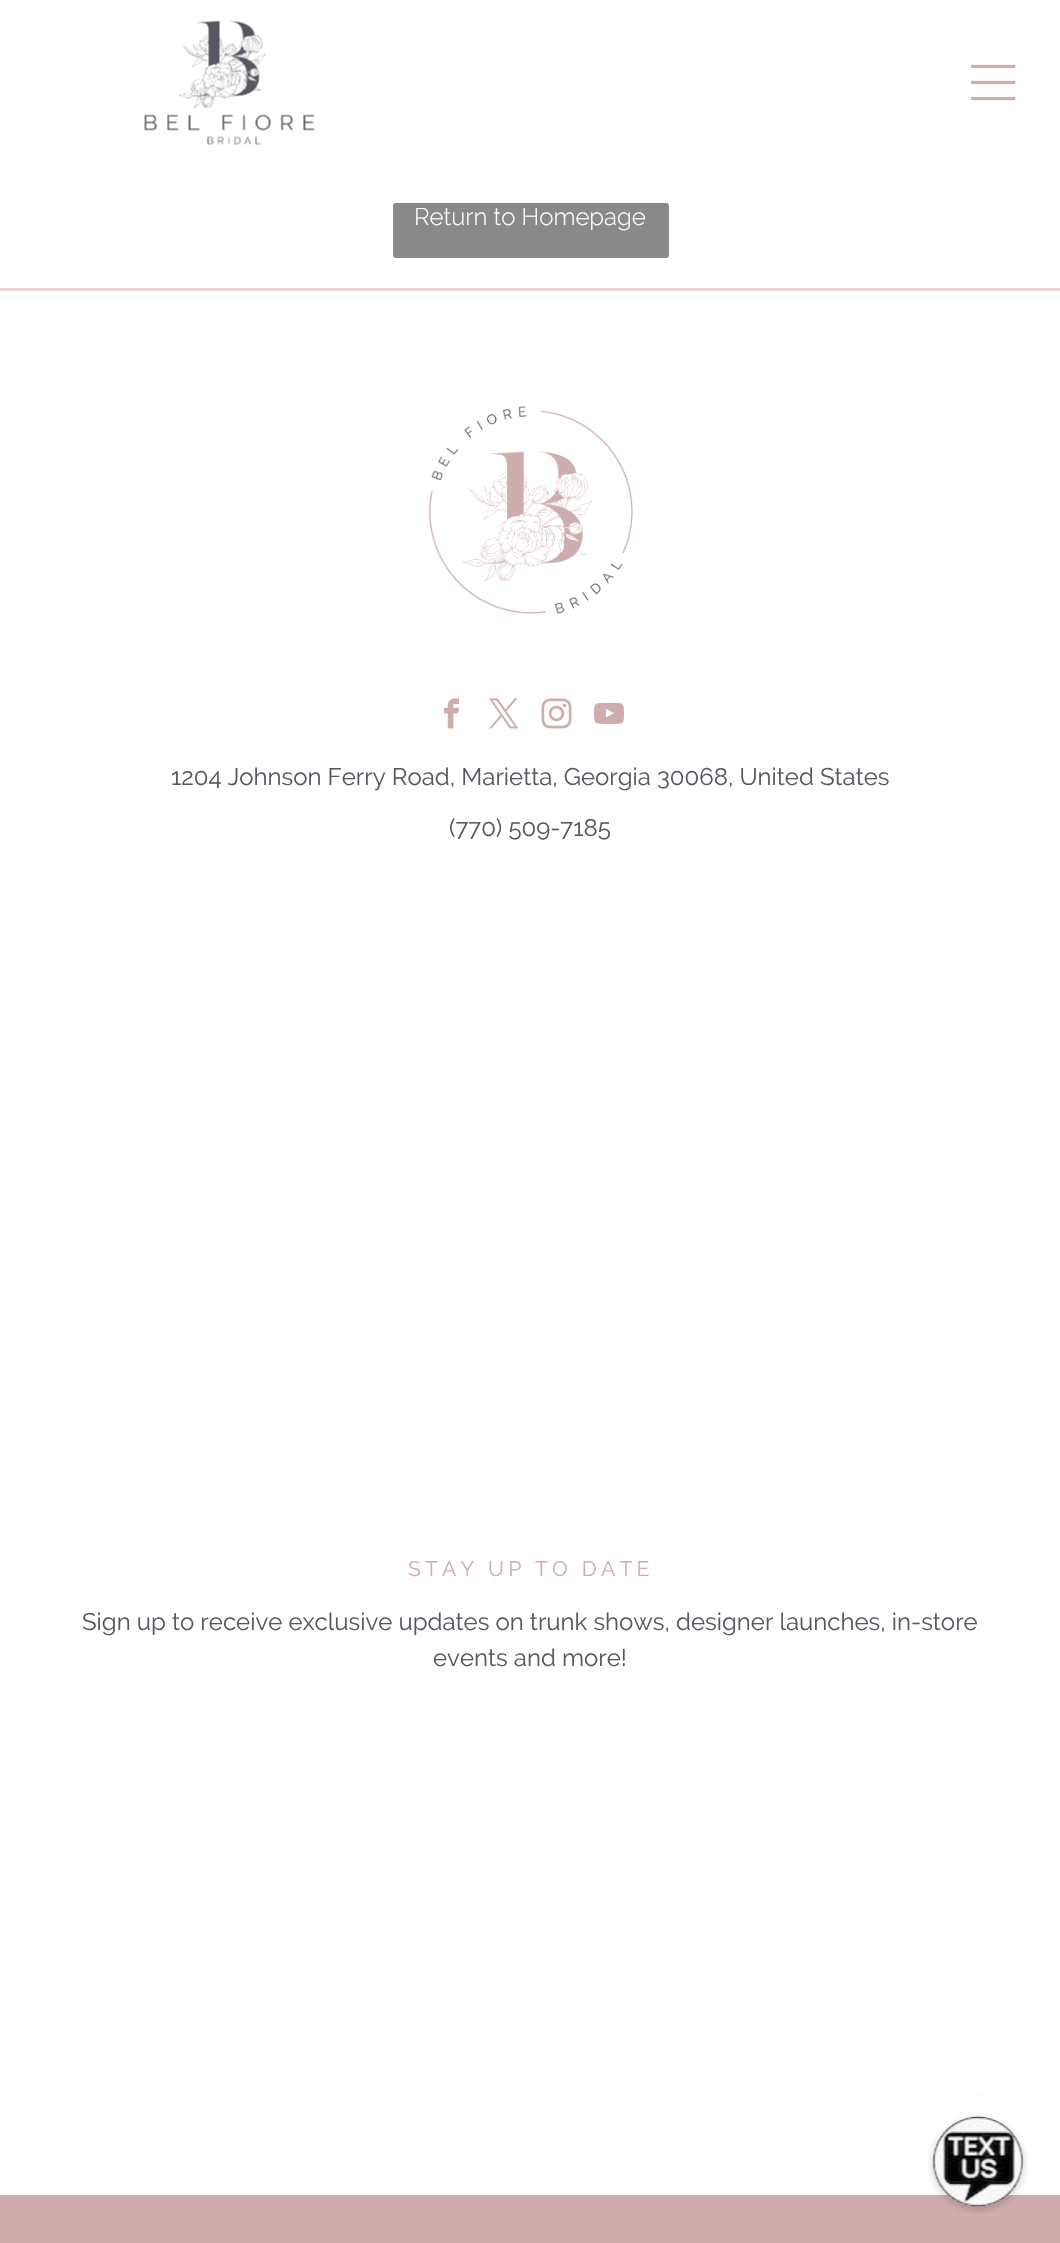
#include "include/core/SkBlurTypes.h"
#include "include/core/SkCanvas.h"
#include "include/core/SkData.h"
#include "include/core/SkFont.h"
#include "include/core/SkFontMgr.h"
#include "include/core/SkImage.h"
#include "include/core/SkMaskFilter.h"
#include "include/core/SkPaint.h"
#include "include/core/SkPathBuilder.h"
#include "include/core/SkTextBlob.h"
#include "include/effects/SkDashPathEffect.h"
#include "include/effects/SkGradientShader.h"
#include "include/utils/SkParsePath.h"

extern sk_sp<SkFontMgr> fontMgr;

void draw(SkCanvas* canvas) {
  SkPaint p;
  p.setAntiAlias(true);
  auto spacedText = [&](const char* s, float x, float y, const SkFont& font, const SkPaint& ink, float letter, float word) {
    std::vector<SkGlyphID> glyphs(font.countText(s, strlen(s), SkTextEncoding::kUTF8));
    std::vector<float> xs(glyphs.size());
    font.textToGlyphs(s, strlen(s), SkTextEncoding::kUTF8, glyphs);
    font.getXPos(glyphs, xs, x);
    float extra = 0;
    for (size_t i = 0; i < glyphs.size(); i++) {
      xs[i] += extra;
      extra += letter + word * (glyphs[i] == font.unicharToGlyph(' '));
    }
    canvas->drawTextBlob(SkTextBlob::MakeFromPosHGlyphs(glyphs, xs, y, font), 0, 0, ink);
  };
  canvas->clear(SK_ColorWHITE);
  canvas->drawImageRect(SkImages::DeferredFromEncodedData(SkData::MakeFromFileName("images/1.png")), SkRect::MakeLTRB(144, 20, 315, 145), SkSamplingOptions());
  canvas->drawImageRect(SkImages::DeferredFromEncodedData(SkData::MakeFromFileName("images/2.png")), SkRect::MakeLTRB(971, 64, 1016, 101), SkSamplingOptions());
  p.setColor(SkColorSetRGB(137, 137, 137));
  canvas->drawRoundRect(SkRect::MakeLTRB(393, 203, 669, 258), 3, 3, p);
  p.setColor(SkColorSetRGB(232, 213, 209));
  canvas->drawRect(SkRect::MakeLTRB(0, 288, 1060, 291), p);
  canvas->drawImageRect(SkImages::DeferredFromEncodedData(SkData::MakeFromFileName("images/3.png")), SkRect::MakeLTRB(429, 406, 633, 614), SkSamplingOptions());
  canvas->drawImageRect(SkImages::DeferredFromEncodedData(SkData::MakeFromFileName("images/4.png")), SkRect::MakeLTRB(444, 698, 459, 729), SkSamplingOptions());
  canvas->drawImageRect(SkImages::DeferredFromEncodedData(SkData::MakeFromFileName("images/5.png")), SkRect::MakeLTRB(489, 698, 519, 729), SkSamplingOptions());
  canvas->drawImageRect(SkImages::DeferredFromEncodedData(SkData::MakeFromFileName("images/6.png")), SkRect::MakeLTRB(541, 698, 572, 729), SkSamplingOptions());
  canvas->drawImageRect(SkImages::DeferredFromEncodedData(SkData::MakeFromFileName("images/7.png")), SkRect::MakeLTRB(594, 702, 624, 724), SkSamplingOptions());
  p.setColor(SkColorSetRGB(209, 172, 172));
  canvas->drawRect(SkRect::MakeLTRB(0, 2195, 1060, 2243), p);
  canvas->drawImageRect(SkImages::DeferredFromEncodedData(SkData::MakeFromFileName("images/8.png")), SkRect::MakeLTRB(928, 2094, 1028, 2214), SkSamplingOptions());
  SkFont font1(fontMgr->matchFamilyStyle("Raleway", SkFontStyle(300, SkFontStyle::kNormal_Width, SkFontStyle::kUpright_Slant)), 24);
  font1.setSubpixel(true);
  p.setColor(SK_ColorWHITE);
  canvas->drawString("Return to Homepage", 414, 225, font1, p);
  SkFont font2(fontMgr->matchFamilyStyle("Raleway", SkFontStyle::Normal()), 24);
  font2.setSubpixel(true);
  p.setColor(SkColorSetRGB(88, 87, 96));
  canvas->drawString("1204 Johnson Ferry Road, Marietta, Georgia 30068, United States", 171, 785, font2, p);
  canvas->drawString("(770) 509-7185", 449, 836, font2, p);
  SkFont font3(fontMgr->matchFamilyStyle("Raleway", SkFontStyle::Normal()), 21);
  font3.setSubpixel(true);
  p.setColor(SkColorSetRGB(209, 172, 172));
  spacedText("STAY UP TO DATE", 408, 1576, font3, p, 4.25f, 0);
  p.setColor(SkColorSetRGB(88, 87, 96));
  canvas->drawString("Sign up to receive exclusive updates on trunk shows, designer launches, in-store", 82, 1630, font2, p);
  canvas->drawString("events and more!", 433, 1666, font2, p);
}
